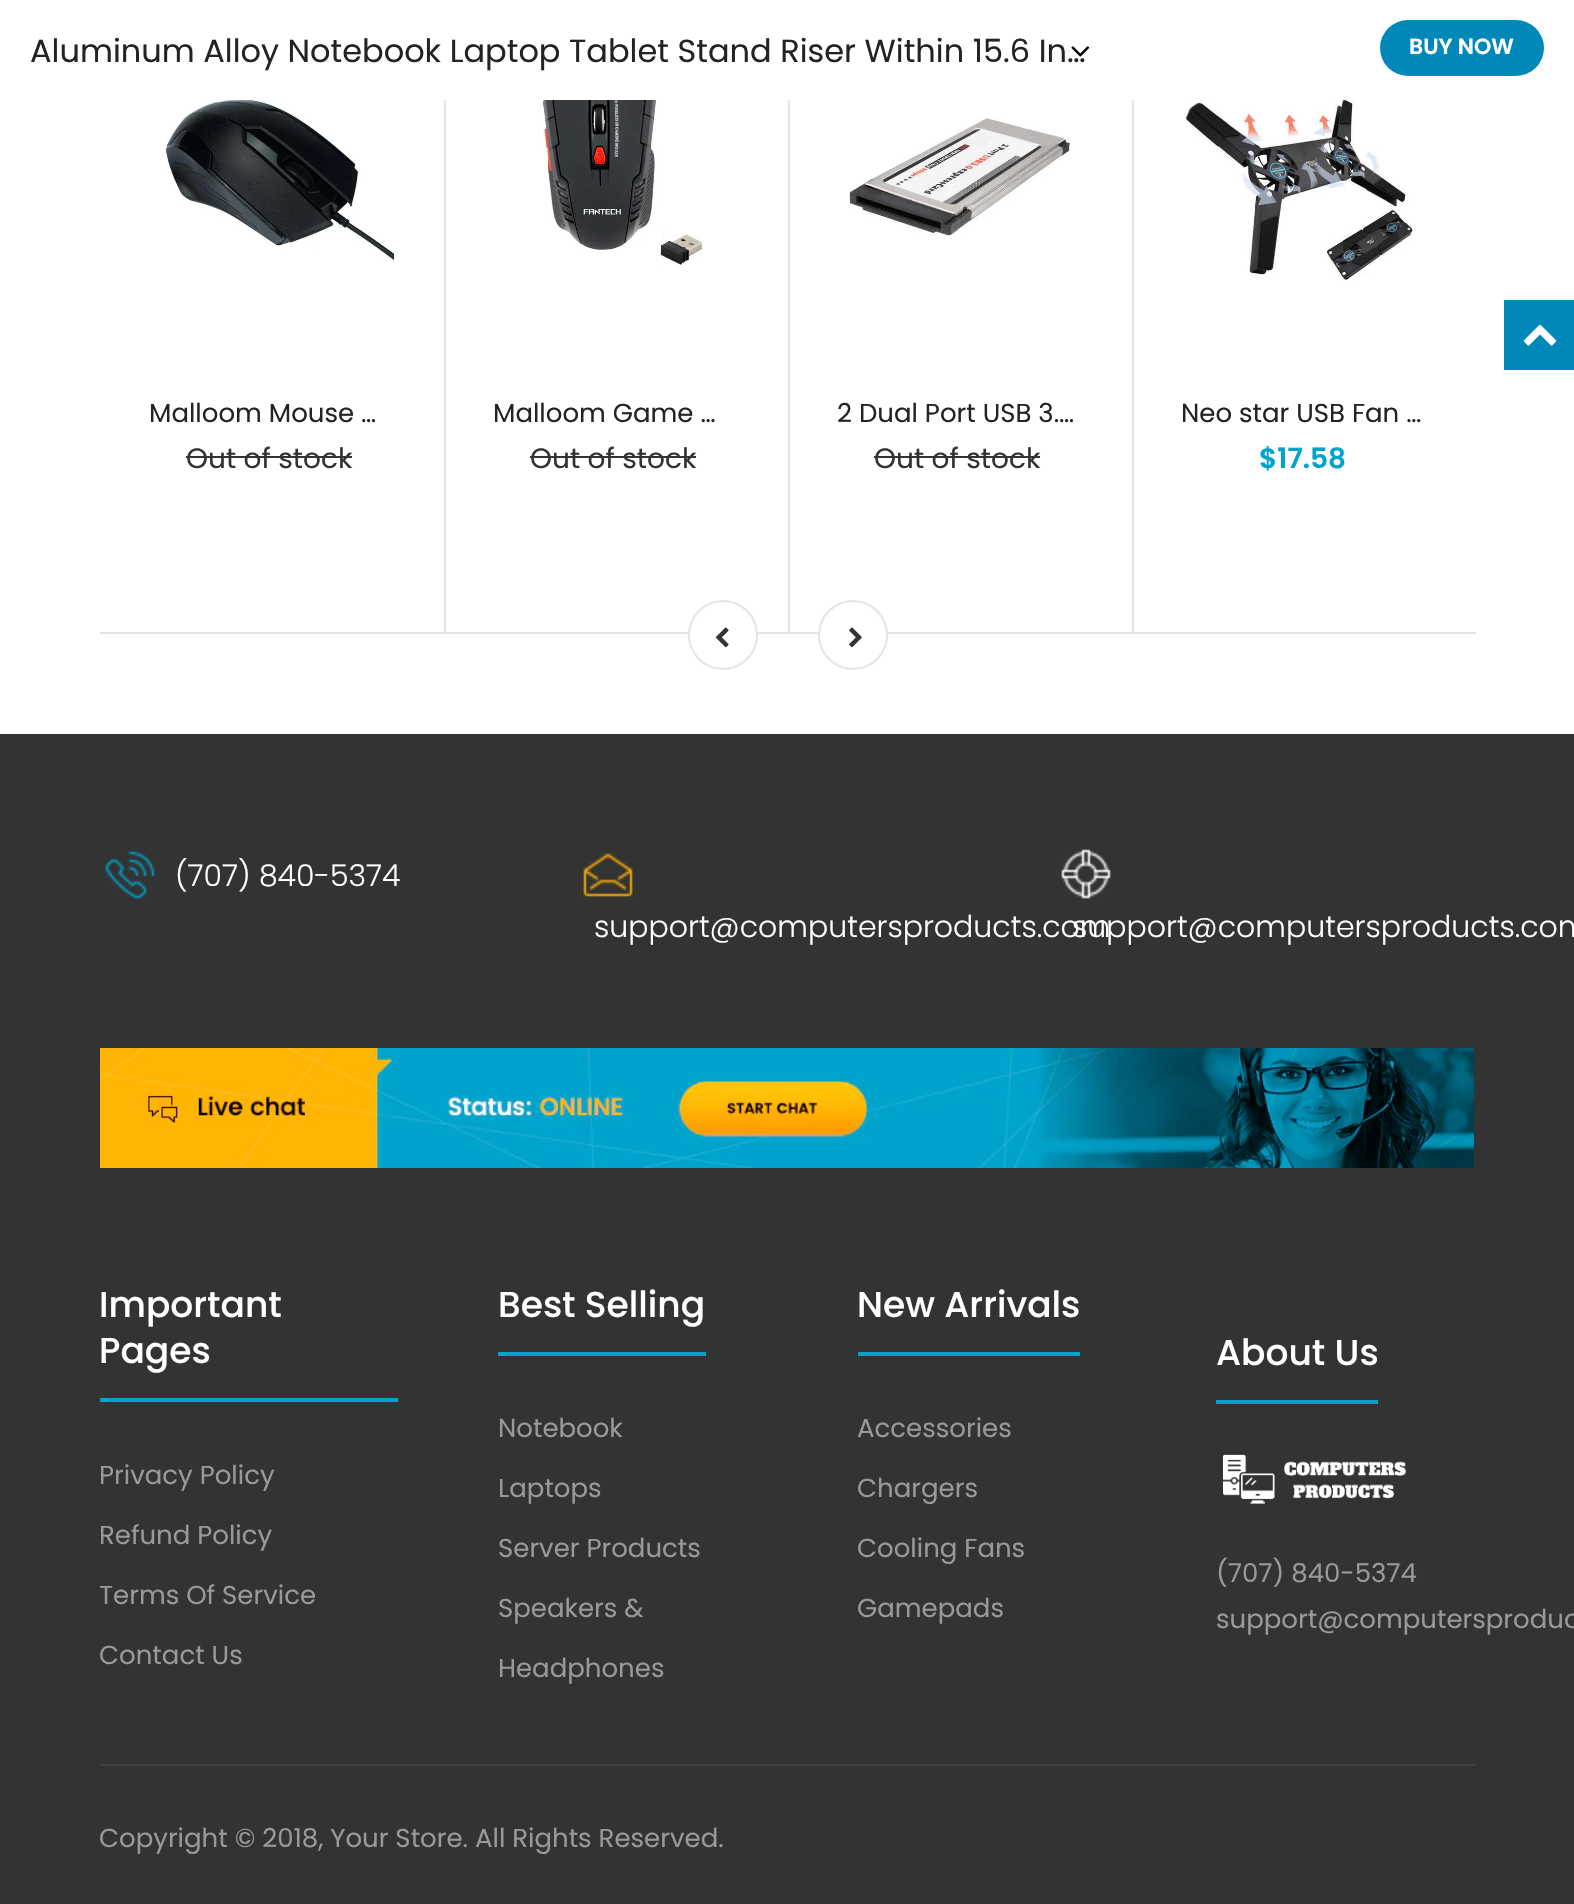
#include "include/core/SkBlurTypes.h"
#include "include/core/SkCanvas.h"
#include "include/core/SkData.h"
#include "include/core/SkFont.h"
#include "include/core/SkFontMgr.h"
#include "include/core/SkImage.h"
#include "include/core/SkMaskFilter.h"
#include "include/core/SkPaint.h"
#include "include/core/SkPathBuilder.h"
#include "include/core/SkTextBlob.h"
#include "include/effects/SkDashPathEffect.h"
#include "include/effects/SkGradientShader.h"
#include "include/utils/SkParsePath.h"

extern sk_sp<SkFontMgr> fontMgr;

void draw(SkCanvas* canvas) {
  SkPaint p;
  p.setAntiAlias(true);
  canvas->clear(SK_ColorWHITE);
  p.setColor(SkColorSetRGB(0, 136, 185));
  canvas->drawRoundRect(SkRect::MakeLTRB(1380, 20, 1544, 76), 28, 28, p);
  canvas->drawRect(SkRect::MakeLTRB(1504, 300, 1574, 370), p);
  canvas->drawImageRect(SkImages::DeferredFromEncodedData(SkData::MakeFromFileName("images/2.png")), SkRect::MakeLTRB(1523, 324, 1557, 346), SkSamplingOptions());
  canvas->drawImageRect(SkImages::DeferredFromEncodedData(SkData::MakeFromFileName("images/3.png")), SkRect::MakeLTRB(164, 100, 394, 261), SkSamplingOptions());
  p.setColor(SkColorSetRGB(229, 229, 229));
  canvas->drawRect(SkRect::MakeLTRB(100, 632, 1476, 634), p);
  canvas->drawRect(SkRect::MakeLTRB(444, 100, 446, 634), p);
  p.setColor(SkColorSetRGB(51, 51, 51));
  canvas->drawRect(SkRect::MakeLTRB(186, 456, 352, 458), p);
  canvas->drawImageRect(SkImages::DeferredFromEncodedData(SkData::MakeFromFileName("images/4.png")), SkRect::MakeLTRB(543, 100, 704, 265), SkSamplingOptions());
  p.setColor(SkColorSetRGB(229, 229, 229));
  canvas->drawRect(SkRect::MakeLTRB(788, 100, 790, 634), p);
  p.setColor(SkColorSetRGB(51, 51, 51));
  canvas->drawRect(SkRect::MakeLTRB(530, 456, 696, 458), p);
  canvas->drawImageRect(SkImages::DeferredFromEncodedData(SkData::MakeFromFileName("images/5.png")), SkRect::MakeLTRB(849, 118, 1072, 236), SkSamplingOptions());
  p.setColor(SkColorSetRGB(229, 229, 229));
  canvas->drawRect(SkRect::MakeLTRB(1132, 100, 1134, 634), p);
  p.setColor(SkColorSetRGB(51, 51, 51));
  canvas->drawRect(SkRect::MakeLTRB(874, 456, 1040, 458), p);
  canvas->drawImageRect(SkImages::DeferredFromEncodedData(SkData::MakeFromFileName("images/6.png")), SkRect::MakeLTRB(1185, 100, 1414, 282), SkSamplingOptions());
  p.setColor(SK_ColorWHITE);
  canvas->drawCircle(723, 635, 34, p);
  p.setStyle(SkPaint::kStroke_Style);
  p.setStrokeWidth(2);
  p.setColor(SkColorSetRGB(229, 229, 229));
  canvas->drawCircle(723, 635, 34, p);
  canvas->drawImageRect(SkImages::DeferredFromEncodedData(SkData::MakeFromFileName("images/7.png")), SkRect::MakeLTRB(715, 627, 729, 648), SkSamplingOptions());
  p.setStyle(SkPaint::kFill_Style);
  p.setColor(SK_ColorWHITE);
  canvas->drawCircle(853, 635, 34, p);
  p.setStyle(SkPaint::kStroke_Style);
  p.setColor(SkColorSetRGB(229, 229, 229));
  canvas->drawCircle(853, 635, 34, p);
  canvas->drawImageRect(SkImages::DeferredFromEncodedData(SkData::MakeFromFileName("images/8.png")), SkRect::MakeLTRB(849, 627, 862, 648), SkSamplingOptions());
  p.setStyle(SkPaint::kFill_Style);
  p.setColor(SkColorSetRGB(51, 51, 51));
  canvas->drawRect(SkRect::MakeLTRB(0, 734, 1574, 1904), p);
  canvas->drawImageRect(SkImages::DeferredFromEncodedData(SkData::MakeFromFileName("images/9.png")), SkRect::MakeLTRB(105, 851, 155, 899), SkSamplingOptions());
  canvas->drawImageRect(SkImages::DeferredFromEncodedData(SkData::MakeFromFileName("images/10.png")), SkRect::MakeLTRB(583, 853, 633, 897), SkSamplingOptions());
  canvas->drawImageRect(SkImages::DeferredFromEncodedData(SkData::MakeFromFileName("images/11.png")), SkRect::MakeLTRB(1061, 849, 1111, 899), SkSamplingOptions());
  canvas->drawImageRect(SkImages::DeferredFromEncodedData(SkData::MakeFromFileName("images/12.png")), SkRect::MakeLTRB(100, 1048, 1474, 1168), SkSamplingOptions());
  p.setColor(SkColorSetRGB(0, 163, 204));
  canvas->drawRect(SkRect::MakeLTRB(100, 1398, 398, 1402), p);
  canvas->drawRect(SkRect::MakeLTRB(498, 1352, 706, 1356), p);
  canvas->drawRect(SkRect::MakeLTRB(858, 1352, 1080, 1356), p);
  canvas->drawRect(SkRect::MakeLTRB(1216, 1400, 1378, 1404), p);
  canvas->drawImageRect(SkImages::DeferredFromEncodedData(SkData::MakeFromFileName("images/13.png")), SkRect::MakeLTRB(1223, 1454, 1406, 1504), SkSamplingOptions());
  p.setColor(SkColorSetRGB(61, 61, 61));
  canvas->drawRect(SkRect::MakeLTRB(100, 1764, 1476, 1766), p);
  SkFont font1(fontMgr->matchFamilyStyle("Poppins", SkFontStyle::Normal()), 32);
  font1.setSubpixel(true);
  p.setColor(SkColorSetRGB(35, 35, 35));
  canvas->drawString("Aluminum Alloy Notebook Laptop Tablet Stand Riser Within 15.6 In…", 30, 62, font1, p);
  canvas->drawImageRect(SkImages::DeferredFromEncodedData(SkData::MakeFromFileName("images/1.png")), SkRect::MakeLTRB(1071, 46, 1090, 57), SkSamplingOptions());
  SkFont font2(fontMgr->matchFamilyStyle("Poppins", SkFontStyle(600, SkFontStyle::kNormal_Width, SkFontStyle::kUpright_Slant)), 22);
  font2.setSubpixel(true);
  p.setColor(SK_ColorWHITE);
  canvas->drawString("BUY NOW", 1409, 54, font2, p);
  SkFont font3(fontMgr->matchFamilyStyle("Poppins", SkFontStyle::Normal()), 26);
  font3.setSubpixel(true);
  p.setColor(SkColorSetRGB(35, 35, 35));
  canvas->drawString("Malloom Mouse …", 149, 422, font3, p);
  SkFont font4(fontMgr->matchFamilyStyle("Poppins", SkFontStyle::Normal()), 28);
  font4.setSubpixel(true);
  p.setColor(SkColorSetRGB(51, 51, 51));
  canvas->drawString("Out of stock", 186, 468, font4, p);
  p.setColor(SkColorSetRGB(35, 35, 35));
  canvas->drawString("Malloom Game …", 493, 422, font3, p);
  p.setColor(SkColorSetRGB(51, 51, 51));
  canvas->drawString("Out of stock", 530, 468, font4, p);
  p.setColor(SkColorSetRGB(35, 35, 35));
  canvas->drawString("2 Dual Port USB 3.…", 837, 422, font3, p);
  p.setColor(SkColorSetRGB(51, 51, 51));
  canvas->drawString("Out of stock", 874, 468, font4, p);
  p.setColor(SkColorSetRGB(35, 35, 35));
  canvas->drawString("Neo star USB Fan …", 1181, 422, font3, p);
  SkFont font5(fontMgr->matchFamilyStyle("Poppins", SkFontStyle(600, SkFontStyle::kNormal_Width, SkFontStyle::kUpright_Slant)), 28);
  font5.setSubpixel(true);
  p.setColor(SkColorSetRGB(0, 163, 204));
  canvas->drawString("$17.58", 1259, 468, font5, p);
  SkFont font6(fontMgr->matchFamilyStyle("Poppins", SkFontStyle(300, SkFontStyle::kNormal_Width, SkFontStyle::kUpright_Slant)), 30);
  font6.setSubpixel(true);
  p.setColor(SK_ColorWHITE);
  canvas->drawString("(707) 840-5374", 175, 886, font6, p);
  canvas->drawString("support@computersproducts.com", 594, 937, font6, p);
  canvas->drawString("support@computersproducts.com", 1072, 937, font6, p);
  SkFont font7(fontMgr->matchFamilyStyle("Poppins", SkFontStyle(500, SkFontStyle::kNormal_Width, SkFontStyle::kUpright_Slant)), 36);
  font7.setSubpixel(true);
  canvas->drawString("Important", 99, 1317, font7, p);
  canvas->drawString("Pages", 99, 1363, font7, p);
  p.setColor(SkColorSetRGB(153, 153, 153));
  canvas->drawString("Privacy Policy", 99, 1484, font3, p);
  canvas->drawString("Refund Policy", 99, 1544, font3, p);
  canvas->drawString("Terms Of Service", 99, 1604, font3, p);
  canvas->drawString("Contact Us", 99, 1664, font3, p);
  p.setColor(SK_ColorWHITE);
  canvas->drawString("Best Selling", 498, 1317, font7, p);
  p.setColor(SkColorSetRGB(153, 153, 153));
  canvas->drawString("Notebook", 498, 1437, font3, p);
  canvas->drawString("Laptops", 498, 1497, font3, p);
  canvas->drawString("Server Products", 498, 1557, font3, p);
  canvas->drawString("Speakers &", 498, 1617, font3, p);
  canvas->drawString("Headphones", 498, 1677, font3, p);
  p.setColor(SK_ColorWHITE);
  canvas->drawString("New Arrivals", 857, 1317, font7, p);
  p.setColor(SkColorSetRGB(153, 153, 153));
  canvas->drawString("Accessories", 857, 1437, font3, p);
  canvas->drawString("Chargers", 857, 1497, font3, p);
  canvas->drawString("Cooling Fans", 857, 1557, font3, p);
  canvas->drawString("Gamepads", 857, 1617, font3, p);
  p.setColor(SK_ColorWHITE);
  canvas->drawString("About Us", 1216, 1365, font7, p);
  p.setColor(SkColorSetRGB(153, 153, 153));
  canvas->drawString("(707) 840-5374", 1216, 1582, font3, p);
  canvas->drawString("support@computersproduc", 1216, 1628, font3, p);
  canvas->drawString("Copyright © 2018, Your Store. All Rights Reserved.", 99, 1847, font3, p);
}
